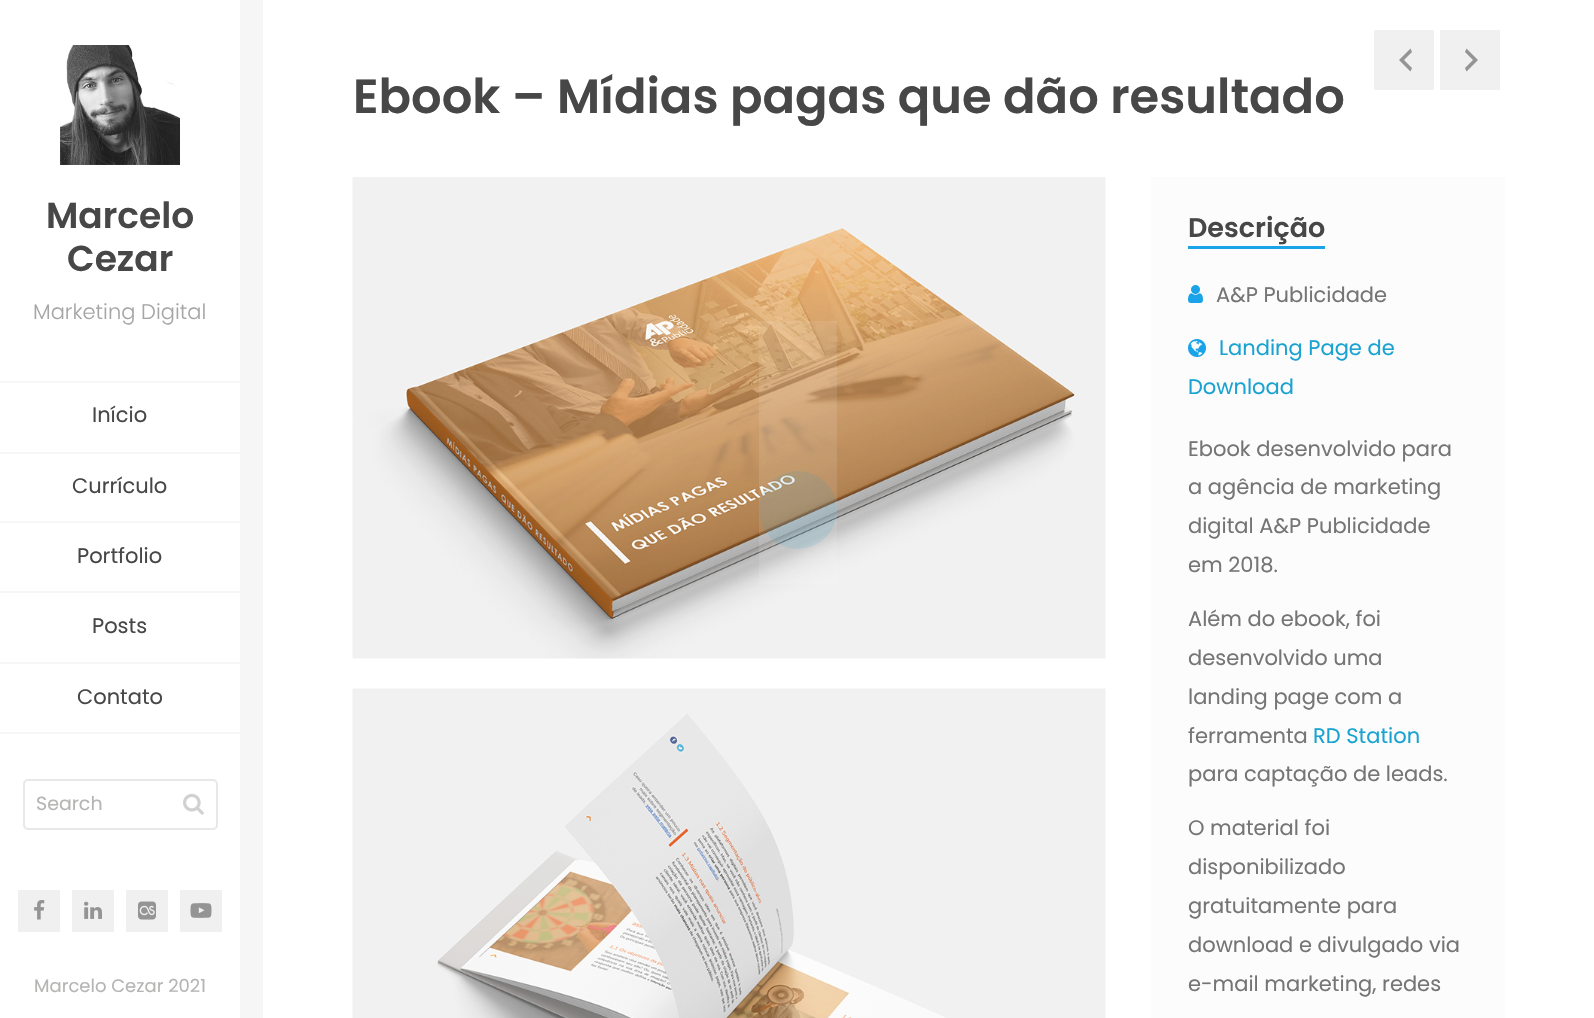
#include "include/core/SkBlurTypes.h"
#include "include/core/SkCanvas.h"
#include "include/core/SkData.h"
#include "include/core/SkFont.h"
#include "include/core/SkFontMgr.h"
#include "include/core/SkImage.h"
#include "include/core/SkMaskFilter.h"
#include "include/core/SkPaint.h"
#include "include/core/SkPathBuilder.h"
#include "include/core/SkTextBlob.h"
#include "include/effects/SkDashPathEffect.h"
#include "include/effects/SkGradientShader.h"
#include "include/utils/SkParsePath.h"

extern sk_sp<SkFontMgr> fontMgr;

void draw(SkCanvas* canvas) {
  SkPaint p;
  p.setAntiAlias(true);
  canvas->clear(SkColorSetRGB(246, 246, 246));
  p.setColor(SK_ColorWHITE);
  canvas->drawRect(SkRect::MakeLTRB(0, 0, 240, 1018), p);
  canvas->drawImageRect(SkImages::DeferredFromEncodedData(SkData::MakeFromFileName("images/1.png")), SkRect::MakeLTRB(60, 45, 180, 165), SkSamplingOptions());
  p.setColor(SkColorSetRGB(246, 246, 246));
  canvas->drawRect(SkRect::MakeLTRB(0, 381, 240, 383), p);
  canvas->drawRect(SkRect::MakeLTRB(0, 452, 240, 454), p);
  canvas->drawRect(SkRect::MakeLTRB(0, 521, 240, 523), p);
  canvas->drawRect(SkRect::MakeLTRB(0, 591, 240, 593), p);
  canvas->drawRect(SkRect::MakeLTRB(0, 662, 240, 664), p);
  canvas->drawRect(SkRect::MakeLTRB(0, 732, 240, 734), p);
  p.setStyle(SkPaint::kStroke_Style);
  p.setStrokeWidth(2);
  p.setColor(SkColorSetRGB(232, 232, 232));
  canvas->drawRoundRect(SkRect::MakeLTRB(24, 780, 217, 829), 4, 4, p);
  canvas->drawImageRect(SkImages::DeferredFromEncodedData(SkData::MakeFromFileName("images/2.png")), SkRect::MakeLTRB(183, 793, 204, 815), SkSamplingOptions());
  p.setStyle(SkPaint::kFill_Style);
  p.setColor(SkColorSetRGB(240, 240, 240));
  canvas->drawRect(SkRect::MakeLTRB(18, 890, 60, 932), p);
  canvas->drawImageRect(SkImages::DeferredFromEncodedData(SkData::MakeFromFileName("images/3.png")), SkRect::MakeLTRB(34, 900, 45, 920), SkSamplingOptions());
  canvas->drawRect(SkRect::MakeLTRB(72, 890, 114, 932), p);
  canvas->drawImageRect(SkImages::DeferredFromEncodedData(SkData::MakeFromFileName("images/4.png")), SkRect::MakeLTRB(84, 901, 102, 919), SkSamplingOptions());
  canvas->drawRect(SkRect::MakeLTRB(126, 890, 168, 932), p);
  canvas->drawImageRect(SkImages::DeferredFromEncodedData(SkData::MakeFromFileName("images/5.png")), SkRect::MakeLTRB(138, 901, 156, 920), SkSamplingOptions());
  canvas->drawRect(SkRect::MakeLTRB(180, 890, 222, 932), p);
  canvas->drawImageRect(SkImages::DeferredFromEncodedData(SkData::MakeFromFileName("images/6.png")), SkRect::MakeLTRB(190, 903, 212, 918), SkSamplingOptions());
  p.setColor(SK_ColorWHITE);
  canvas->drawRect(SkRect::MakeLTRB(263, 0, 1594, 1018), p);
  p.setColor(SkColorSetRGB(240, 240, 240));
  canvas->drawRect(SkRect::MakeLTRB(1374, 30, 1434, 90), p);
  p.setColor(SkColorSetRGB(148, 148, 148));
  canvas->drawPath(SkPathBuilder().moveTo(1412, 52).lineTo(1404, 60).lineTo(1412, 68).lineTo(1410.5f, 71.5f).lineTo(1399, 60).lineTo(1410.5f, 48.5f).close().detach(), p);
  p.setColor(SkColorSetRGB(240, 240, 240));
  canvas->drawRect(SkRect::MakeLTRB(1440, 30, 1500, 90), p);
  p.setColor(SkColorSetRGB(148, 148, 148));
  canvas->drawPath(SkPathBuilder().moveTo(1465, 68).lineTo(1473, 60).lineTo(1465, 52).lineTo(1466.5f, 48.5f).lineTo(1478, 60).lineTo(1466.5f, 71.5f).close().detach(), p);
  canvas->drawImageRect(SkImages::DeferredFromEncodedData(SkData::MakeFromFileName("images/7.png")), SkRect::MakeLTRB(352, 177, 1106, 659), SkSamplingOptions());
  canvas->drawImageRect(SkImages::DeferredFromEncodedData(SkData::MakeFromFileName("images/8.png")), SkRect::MakeLTRB(352, 688, 1106, 1018), SkSamplingOptions());
  p.setColor(SkColorSetRGB(252, 252, 252));
  canvas->drawRect(SkRect::MakeLTRB(1151, 177, 1505, 1018), p);
  p.setColor(SkColorSetRGB(26, 163, 232));
  canvas->drawRect(SkRect::MakeLTRB(1188, 246, 1325, 249), p);
  canvas->drawImageRect(SkImages::DeferredFromEncodedData(SkData::MakeFromFileName("images/9.png")), SkRect::MakeLTRB(1188, 285, 1203, 303), SkSamplingOptions());
  canvas->drawImageRect(SkImages::DeferredFromEncodedData(SkData::MakeFromFileName("images/10.png")), SkRect::MakeLTRB(1188, 339, 1206, 357), SkSamplingOptions());
  p.setColor(SkColorSetARGB(26, 255, 255, 255));
  canvas->drawRect(SkRect::MakeLTRB(759, 321, 837, 584), p);
  p.setColor(SkColorSetARGB(26, 0, 153, 229));
  canvas->drawCircle(798, 510, 39, p);
  SkFont font1(fontMgr->matchFamilyStyle("Poppins", SkFontStyle(600, SkFontStyle::kNormal_Width, SkFontStyle::kUpright_Slant)), 36);
  font1.setSubpixel(true);
  p.setColor(SkColorSetRGB(71, 71, 71));
  canvas->drawString("Marcelo", 46, 228, font1, p);
  canvas->drawString("Cezar", 67, 271, font1, p);
  SkFont font2(fontMgr->matchFamilyStyle("Poppins", SkFontStyle(300, SkFontStyle::kNormal_Width, SkFontStyle::kUpright_Slant)), 21);
  font2.setSubpixel(true);
  p.setColor(SkColorSetRGB(166, 166, 166));
  canvas->drawString("Marketing Digital", 33, 319, font2, p);
  SkFont font3(fontMgr->matchFamilyStyle("Poppins", SkFontStyle::Normal()), 21);
  font3.setSubpixel(true);
  p.setColor(SkColorSetRGB(71, 71, 71));
  canvas->drawString("Início", 92, 422, font3, p);
  canvas->drawString("Currículo", 72, 493, font3, p);
  canvas->drawString("Portfolio", 77, 563, font3, p);
  canvas->drawString("Posts", 92, 633, font3, p);
  canvas->drawString("Contato", 77, 704, font3, p);
  SkFont font4(fontMgr->matchFamilyStyle("Poppins", SkFontStyle::Normal()), 19);
  font4.setSubpixel(true);
  p.setColor(SkColorSetRGB(181, 181, 180));
  canvas->drawString("Search", 36, 810, font4, p);
  SkFont font5(fontMgr->matchFamilyStyle("Poppins", SkFontStyle::Normal()), 18);
  font5.setSubpixel(true);
  canvas->drawString("Marcelo Cezar 2021", 34, 992, font5, p);
  SkFont font6(fontMgr->matchFamilyStyle("Poppins", SkFontStyle(600, SkFontStyle::kNormal_Width, SkFontStyle::kUpright_Slant)), 48);
  font6.setSubpixel(true);
  p.setColor(SkColorSetRGB(71, 71, 71));
  canvas->drawString("Ebook – Mídias pagas que dão resultado", 353, 113, font6, p);
  SkFont font7(fontMgr->matchFamilyStyle("Poppins", SkFontStyle(600, SkFontStyle::kNormal_Width, SkFontStyle::kUpright_Slant)), 27);
  font7.setSubpixel(true);
  canvas->drawString("Descrição", 1188, 237, font7, p);
  p.setColor(SkColorSetRGB(117, 117, 117));
  canvas->drawString("A&P Publicidade", 1216, 302, font3, p);
  p.setColor(SkColorSetRGB(26, 163, 209));
  canvas->drawString("Landing Page de", 1219, 355, font3, p);
  canvas->drawString("Download", 1188, 394, font3, p);
  p.setColor(SkColorSetRGB(117, 117, 117));
  canvas->drawString("Ebook desenvolvido para", 1188, 456, font3, p);
  canvas->drawString("a agência de marketing", 1188, 494, font3, p);
  canvas->drawString("digital A&P Publicidade", 1188, 533, font3, p);
  canvas->drawString("em 2018.", 1188, 572, font3, p);
  canvas->drawString("Além do ebook, foi", 1188, 626, font3, p);
  canvas->drawString("desenvolvido uma", 1188, 665, font3, p);
  canvas->drawString("landing page com a", 1188, 704, font3, p);
  canvas->drawString("ferramenta", 1188, 743, font3, p);
  p.setColor(SkColorSetRGB(26, 163, 209));
  canvas->drawString("RD Station", 1313, 743, font3, p);
  p.setColor(SkColorSetRGB(117, 117, 117));
  canvas->drawString("para captação de leads.", 1188, 781, font3, p);
  canvas->drawString("O material foi", 1188, 835, font3, p);
  canvas->drawString("disponibilizado", 1188, 874, font3, p);
  canvas->drawString("gratuitamente para", 1188, 913, font3, p);
  canvas->drawString("download e divulgado via", 1188, 952, font3, p);
  canvas->drawString("e-mail marketing, redes", 1188, 991, font3, p);
}
